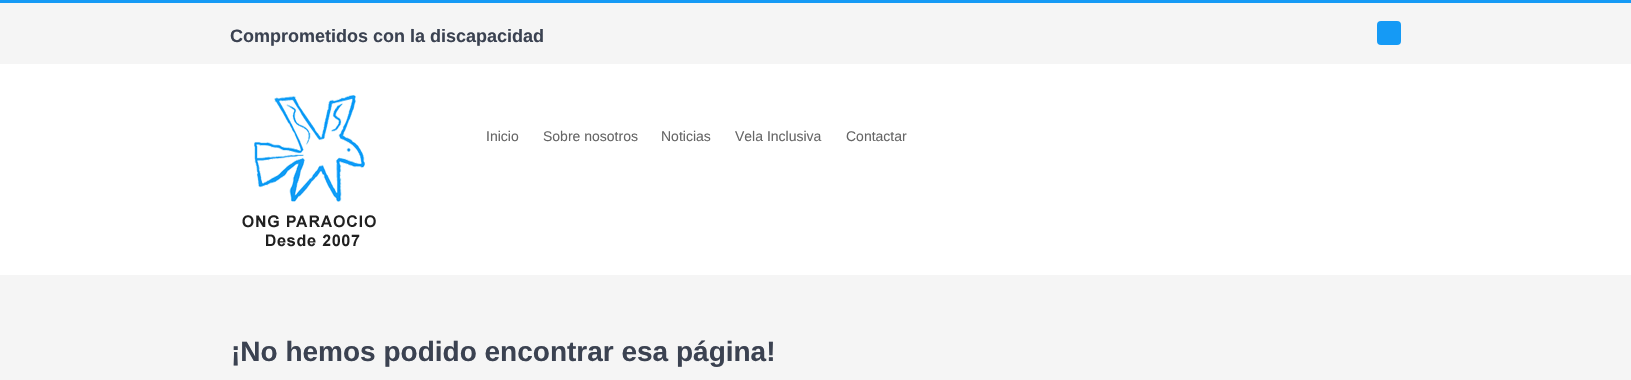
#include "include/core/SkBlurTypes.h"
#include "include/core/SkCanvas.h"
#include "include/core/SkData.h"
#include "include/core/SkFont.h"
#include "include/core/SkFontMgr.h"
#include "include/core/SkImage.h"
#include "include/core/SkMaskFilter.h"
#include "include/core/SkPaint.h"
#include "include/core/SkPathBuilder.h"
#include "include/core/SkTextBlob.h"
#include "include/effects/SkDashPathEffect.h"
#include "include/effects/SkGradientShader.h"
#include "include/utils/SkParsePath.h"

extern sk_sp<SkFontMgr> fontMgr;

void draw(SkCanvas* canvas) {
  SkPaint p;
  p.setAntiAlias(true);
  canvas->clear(SkColorSetRGB(245, 245, 245));
  p.setColor(SkColorSetRGB(21, 154, 245));
  canvas->drawRect(SkRect::MakeLTRB(0, 0, 1631, 3), p);
  canvas->drawRoundRect(SkRect::MakeLTRB(1377, 21, 1401, 45), 4, 4, p);
  p.setColor(SK_ColorWHITE);
  canvas->drawRect(SkRect::MakeLTRB(0, 64, 1631, 275), p);
  canvas->drawImageRect(SkImages::DeferredFromEncodedData(SkData::MakeFromFileName("images/1.png")), SkRect::MakeLTRB(242, 95, 376, 247), SkSamplingOptions());
  SkFont font1(fontMgr->matchFamilyStyle("Liberation Sans", SkFontStyle::Bold()), 18);
  font1.setSubpixel(true);
  p.setColor(SkColorSetRGB(59, 66, 81));
  canvas->drawString("Comprometidos con la discapacidad", 230, 42, font1, p);
  SkFont font2(fontMgr->matchFamilyStyle("Liberation Sans", SkFontStyle::Normal()), 14);
  font2.setSubpixel(true);
  p.setColor(SkColorSetRGB(102, 102, 102));
  canvas->drawString("Inicio", 486, 141, font2, p);
  canvas->drawString("Sobre nosotros", 543, 141, font2, p);
  canvas->drawString("Noticias", 661, 141, font2, p);
  canvas->drawString("Vela Inclusiva", 735, 141, font2, p);
  canvas->drawString("Contactar", 846, 141, font2, p);
  SkFont font3(fontMgr->matchFamilyStyle("Liberation Sans", SkFontStyle::Bold()), 28);
  font3.setSubpixel(true);
  p.setColor(SkColorSetRGB(59, 66, 81));
  canvas->drawString("¡No hemos podido encontrar esa página!", 231, 361, font3, p);
}
